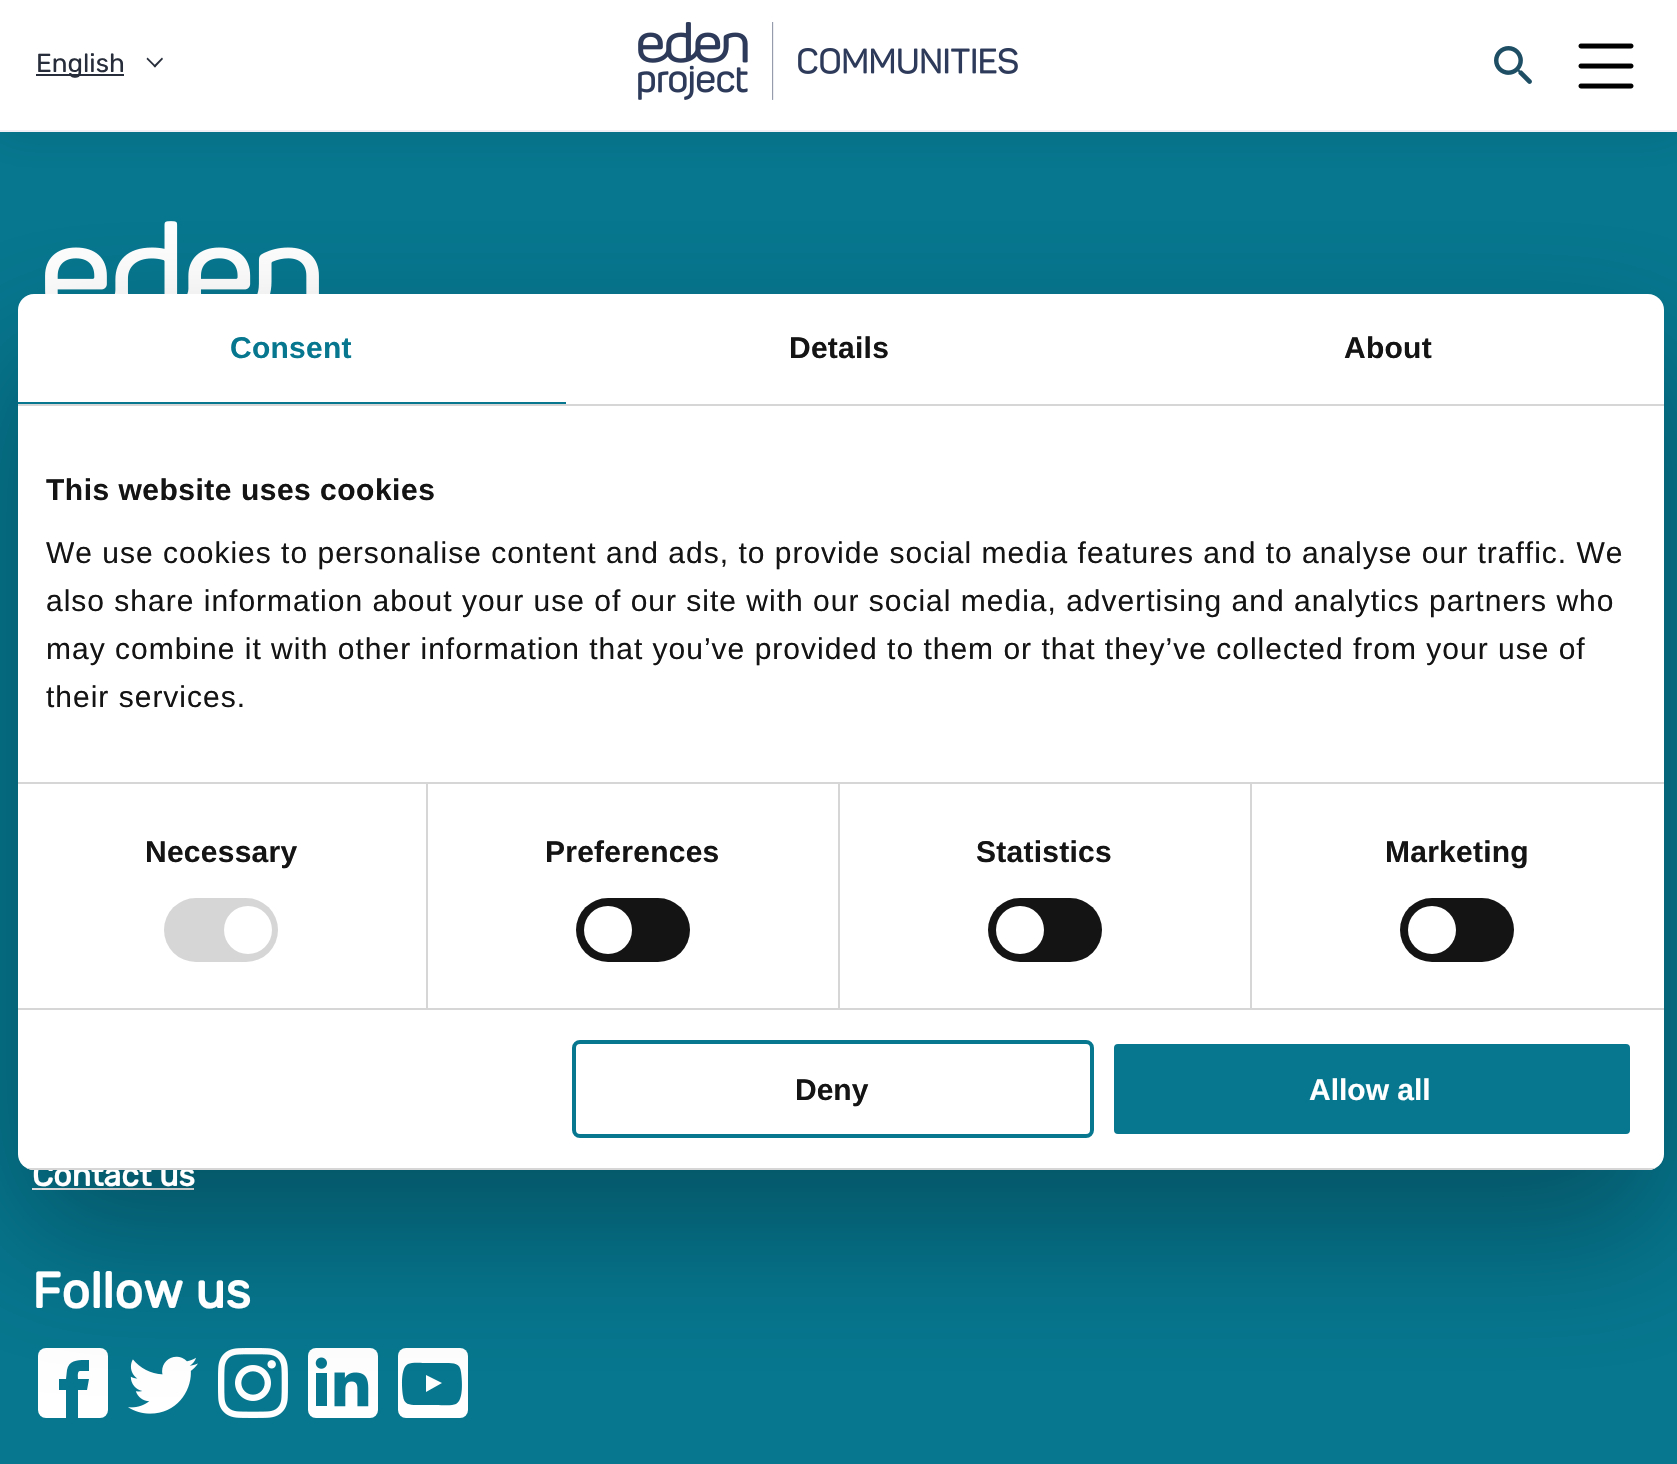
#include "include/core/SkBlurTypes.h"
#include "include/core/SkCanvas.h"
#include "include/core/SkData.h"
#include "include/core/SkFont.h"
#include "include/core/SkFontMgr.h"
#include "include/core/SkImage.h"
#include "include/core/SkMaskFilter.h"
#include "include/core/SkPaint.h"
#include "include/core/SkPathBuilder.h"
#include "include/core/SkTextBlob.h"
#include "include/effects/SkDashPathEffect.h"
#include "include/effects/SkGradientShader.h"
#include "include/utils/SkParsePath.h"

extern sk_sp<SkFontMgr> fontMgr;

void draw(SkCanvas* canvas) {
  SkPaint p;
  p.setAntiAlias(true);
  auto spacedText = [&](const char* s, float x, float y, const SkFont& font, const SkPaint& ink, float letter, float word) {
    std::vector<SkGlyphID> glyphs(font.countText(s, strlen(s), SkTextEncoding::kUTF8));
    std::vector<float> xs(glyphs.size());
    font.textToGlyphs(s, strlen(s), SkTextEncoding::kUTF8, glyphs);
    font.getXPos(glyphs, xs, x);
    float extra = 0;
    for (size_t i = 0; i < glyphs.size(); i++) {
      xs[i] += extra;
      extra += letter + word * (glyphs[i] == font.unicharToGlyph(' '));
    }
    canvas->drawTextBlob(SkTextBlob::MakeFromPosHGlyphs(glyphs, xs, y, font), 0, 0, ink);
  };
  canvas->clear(SkColorSetRGB(6, 119, 143));
  p.setColor(SkColorSetARGB(26, 0, 0, 0));
  p.setMaskFilter(SkMaskFilter::MakeBlur(kNormal_SkBlurStyle, 20));
  canvas->drawRect(SkRect::MakeLTRB(0, 0, 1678, 132), p);
  p.setMaskFilter(nullptr);
  p.setColor(SK_ColorWHITE);
  canvas->drawRect(SkRect::MakeLTRB(0, 0, 1677, 130), p);
  p.setColor(SkColorSetRGB(240, 239, 245));
  canvas->drawRect(SkRect::MakeLTRB(0, 130, 1677, 132), p);
  p.setColor(SkColorSetRGB(39, 45, 58));
  canvas->drawRect(SkRect::MakeLTRB(36, 74, 124, 76), p);
  canvas->drawPath(SkPathBuilder().moveTo(163, 59).lineTo(155, 67.5f).lineTo(153.5f, 66).lineTo(162, 57.5f).close().detach(), p);
  canvas->drawPath(SkPathBuilder().moveTo(156, 66).lineTo(155, 67.5f).lineTo(146.5f, 59).lineTo(147.5f, 57.5f).close().detach(), p);
  canvas->drawImageRect(SkImages::DeferredFromEncodedData(SkData::MakeFromFileName("images/1.png")), SkRect::MakeLTRB(638, 22, 1018, 100), SkSamplingOptions());
  canvas->drawImageRect(SkImages::DeferredFromEncodedData(SkData::MakeFromFileName("images/2.png")), SkRect::MakeLTRB(1494, 46, 1532, 84), SkSamplingOptions());
  canvas->drawImageRect(SkImages::DeferredFromEncodedData(SkData::MakeFromFileName("images/3.png")), SkRect::MakeLTRB(1578, 43, 1634, 89), SkSamplingOptions());
  canvas->drawImageRect(SkImages::DeferredFromEncodedData(SkData::MakeFromFileName("images/4.png")), SkRect::MakeLTRB(45, 221, 319, 294), SkSamplingOptions());
  p.setColor(SK_ColorWHITE);
  canvas->drawRect(SkRect::MakeLTRB(32, 1188, 194, 1190), p);
  canvas->drawRoundRect(SkRect::MakeLTRB(38, 1348, 108, 1418), 8, 8, p);
  p.setColor(SkColorSetRGB(6, 119, 143));
  canvas->drawPath(SkPathBuilder().moveTo(80, 1371).lineTo(89, 1371).lineTo(89, 1360).cubicTo(80, 1360, 69, 1359, 67, 1370).lineTo(66, 1379).lineTo(59, 1379).lineTo(59, 1390).lineTo(66, 1390).lineTo(66, 1420).lineTo(78, 1420).lineTo(78, 1390).lineTo(87, 1390).lineTo(89, 1379).lineTo(78, 1379).cubicTo(78, 1377, 77, 1371, 80, 1371).close().detach(), p);
  canvas->drawImageRect(SkImages::DeferredFromEncodedData(SkData::MakeFromFileName("images/5.png")), SkRect::MakeLTRB(128, 1356, 198, 1414), SkSamplingOptions());
  canvas->drawImageRect(SkImages::DeferredFromEncodedData(SkData::MakeFromFileName("images/6.png")), SkRect::MakeLTRB(218, 1348, 288, 1418), SkSamplingOptions());
  p.setColor(SK_ColorWHITE);
  canvas->drawRoundRect(SkRect::MakeLTRB(308, 1348, 378, 1418), 8, 8, p);
  canvas->drawImageRect(SkImages::DeferredFromEncodedData(SkData::MakeFromFileName("images/7.png")), SkRect::MakeLTRB(315, 1357, 369, 1407), SkSamplingOptions());
  canvas->drawRoundRect(SkRect::MakeLTRB(398, 1348, 468, 1418), 8, 8, p);
  p.setColor(SkColorSetRGB(6, 119, 143));
  canvas->drawPath(SkPathBuilder().moveTo(461, 1372).cubicTo(460, 1363, 454, 1363, 446, 1363).lineTo(428, 1363).cubicTo(422, 1363, 412, 1362, 408, 1364).cubicTo(400, 1368, 402, 1389, 403, 1396).cubicTo(404, 1406, 412, 1405, 420, 1405).lineTo(436, 1405).cubicTo(442, 1405, 452, 1406, 456, 1404).cubicTo(464, 1400, 462, 1379, 461, 1372).close().moveTo(426, 1392).lineTo(426, 1375).lineTo(442, 1383).close().detach(), p);
  p.setColor(SkColorSetARGB(77, 0, 0, 0));
  p.setMaskFilter(SkMaskFilter::MakeBlur(kNormal_SkBlurStyle, 68));
  canvas->drawRoundRect(SkRect::MakeLTRB(18, 358, 1664, 1234), 16, 16, p);
  p.setMaskFilter(nullptr);
  p.setColor(SK_ColorWHITE);
  canvas->drawRoundRect(SkRect::MakeLTRB(18, 294, 1664, 1170), 16, 16, p);
  p.setColor(SkColorSetRGB(214, 214, 214));
  canvas->drawRect(SkRect::MakeLTRB(18, 404, 1664, 406), p);
  p.setColor(SkColorSetRGB(6, 119, 143));
  canvas->drawRect(SkRect::MakeLTRB(18, 402, 566, 404), p);
  p.setColor(SkColorSetRGB(214, 214, 214));
  canvas->drawRect(SkRect::MakeLTRB(18, 782, 1664, 784), p);
  canvas->drawRect(SkRect::MakeLTRB(18, 1008, 1664, 1010), p);
  canvas->drawRect(SkRect::MakeLTRB(426, 784, 428, 1008), p);
  canvas->drawRoundRect(SkRect::MakeLTRB(164, 898, 278, 962), 32, 32, p);
  p.setColor(SK_ColorWHITE);
  canvas->drawCircle(248, 930, 24, p);
  p.setColor(SkColorSetRGB(214, 214, 214));
  canvas->drawRect(SkRect::MakeLTRB(838, 784, 840, 1008), p);
  p.setColor(SkColorSetRGB(20, 20, 20));
  canvas->drawRoundRect(SkRect::MakeLTRB(576, 898, 690, 962), 32, 32, p);
  p.setColor(SK_ColorWHITE);
  canvas->drawCircle(608, 930, 24, p);
  p.setColor(SkColorSetRGB(214, 214, 214));
  canvas->drawRect(SkRect::MakeLTRB(1250, 784, 1252, 1008), p);
  p.setColor(SkColorSetRGB(20, 20, 20));
  canvas->drawRoundRect(SkRect::MakeLTRB(988, 898, 1102, 962), 32, 32, p);
  p.setColor(SK_ColorWHITE);
  canvas->drawCircle(1020, 930, 24, p);
  p.setColor(SkColorSetRGB(20, 20, 20));
  canvas->drawRoundRect(SkRect::MakeLTRB(1400, 898, 1514, 962), 32, 32, p);
  p.setColor(SK_ColorWHITE);
  canvas->drawCircle(1432, 930, 24, p);
  p.setStyle(SkPaint::kStroke_Style);
  p.setStrokeWidth(4);
  p.setColor(SkColorSetRGB(6, 119, 143));
  canvas->drawRoundRect(SkRect::MakeLTRB(574, 1042, 1092, 1136), 6, 6, p);
  p.setStyle(SkPaint::kFill_Style);
  canvas->drawRoundRect(SkRect::MakeLTRB(1112, 1042, 1632, 1136), 6, 6, p);
  p.setStyle(SkPaint::kStroke_Style);
  p.setColor(SK_ColorWHITE);
  canvas->drawRoundRect(SkRect::MakeLTRB(1112, 1042, 1632, 1136), 6, 6, p);
  SkFont font1(fontMgr->matchFamilyStyle("Rubik", SkFontStyle::Normal()), 26);
  font1.setSubpixel(true);
  p.setStyle(SkPaint::kFill_Style);
  p.setColor(SkColorSetRGB(39, 45, 58));
  canvas->drawString("English", 36, 72, font1, p);
  SkFont font2(fontMgr->matchFamilyStyle("Rubik", SkFontStyle::Bold()), 32);
  font2.setSubpixel(true);
  p.setColor(SK_ColorWHITE);
  canvas->drawString("Contact us", 32, 1186, font2, p);
  SkFont font3(fontMgr->matchFamilyStyle("Rubik", SkFontStyle::Bold()), 50);
  font3.setSubpixel(true);
  canvas->drawString("Follow us", 32, 1308, font3, p);
  SkFont font4(fontMgr->matchFamilyStyle("Liberation Sans", SkFontStyle::Bold()), 30);
  font4.setSubpixel(true);
  p.setColor(SkColorSetRGB(6, 119, 143));
  spacedText("Consent", 230, 358, font4, p, 0.25f, 0);
  p.setColor(SkColorSetRGB(20, 20, 20));
  spacedText("Details", 789, 358, font4, p, 0.25f, 0);
  spacedText("About", 1344, 358, font4, p, 0.25f, 0);
  spacedText("This website uses cookies", 46, 500, font4, p, 0.5f, 0);
  SkFont font5(fontMgr->matchFamilyStyle("Liberation Sans", SkFontStyle::Normal()), 30);
  font5.setSubpixel(true);
  spacedText("We use cookies to personalise content and ads, to provide social media features and to analyse our traffic. We", 46, 563, font5, p, 1, 0);
  spacedText("also share information about your use of our site with our social media, advertising and analytics partners who", 46, 611, font5, p, 1, 0);
  spacedText("may combine it with other information that you’ve provided to them or that they’ve collected from your use of", 46, 659, font5, p, 1, 0);
  spacedText("their services.", 46, 707, font5, p, 1, 0);
  spacedText("Necessary", 145, 862, font4, p, 0.25f, 0);
  spacedText("Preferences", 545, 862, font4, p, 0.25f, 0);
  spacedText("Statistics", 976, 862, font4, p, 0.25f, 0);
  spacedText("Marketing", 1385, 862, font4, p, 0.25f, 0);
  canvas->save();
  canvas->clipPath(SkPathBuilder().moveTo(34, 294).lineTo(1648, 294).cubicTo(1657, 294, 1664, 301, 1664, 310).lineTo(1664, 1154).cubicTo(1664, 1163, 1657, 1170, 1648, 1170).lineTo(34, 1170).cubicTo(25, 1170, 18, 1163, 18, 1154).lineTo(18, 310).cubicTo(18, 301, 25, 294, 34, 294).close().detach(), true);
  p.setColor(SkColorSetRGB(214, 214, 214));
  canvas->drawRect(SkRect::MakeLTRB(18, 1168, 1664, 1170), p);
  canvas->restore();
  p.setColor(SkColorSetRGB(20, 20, 20));
  canvas->drawString("Deny", 795, 1100, font4, p);
  p.setColor(SK_ColorWHITE);
  canvas->drawString("Allow all", 1309, 1100, font4, p);
}
